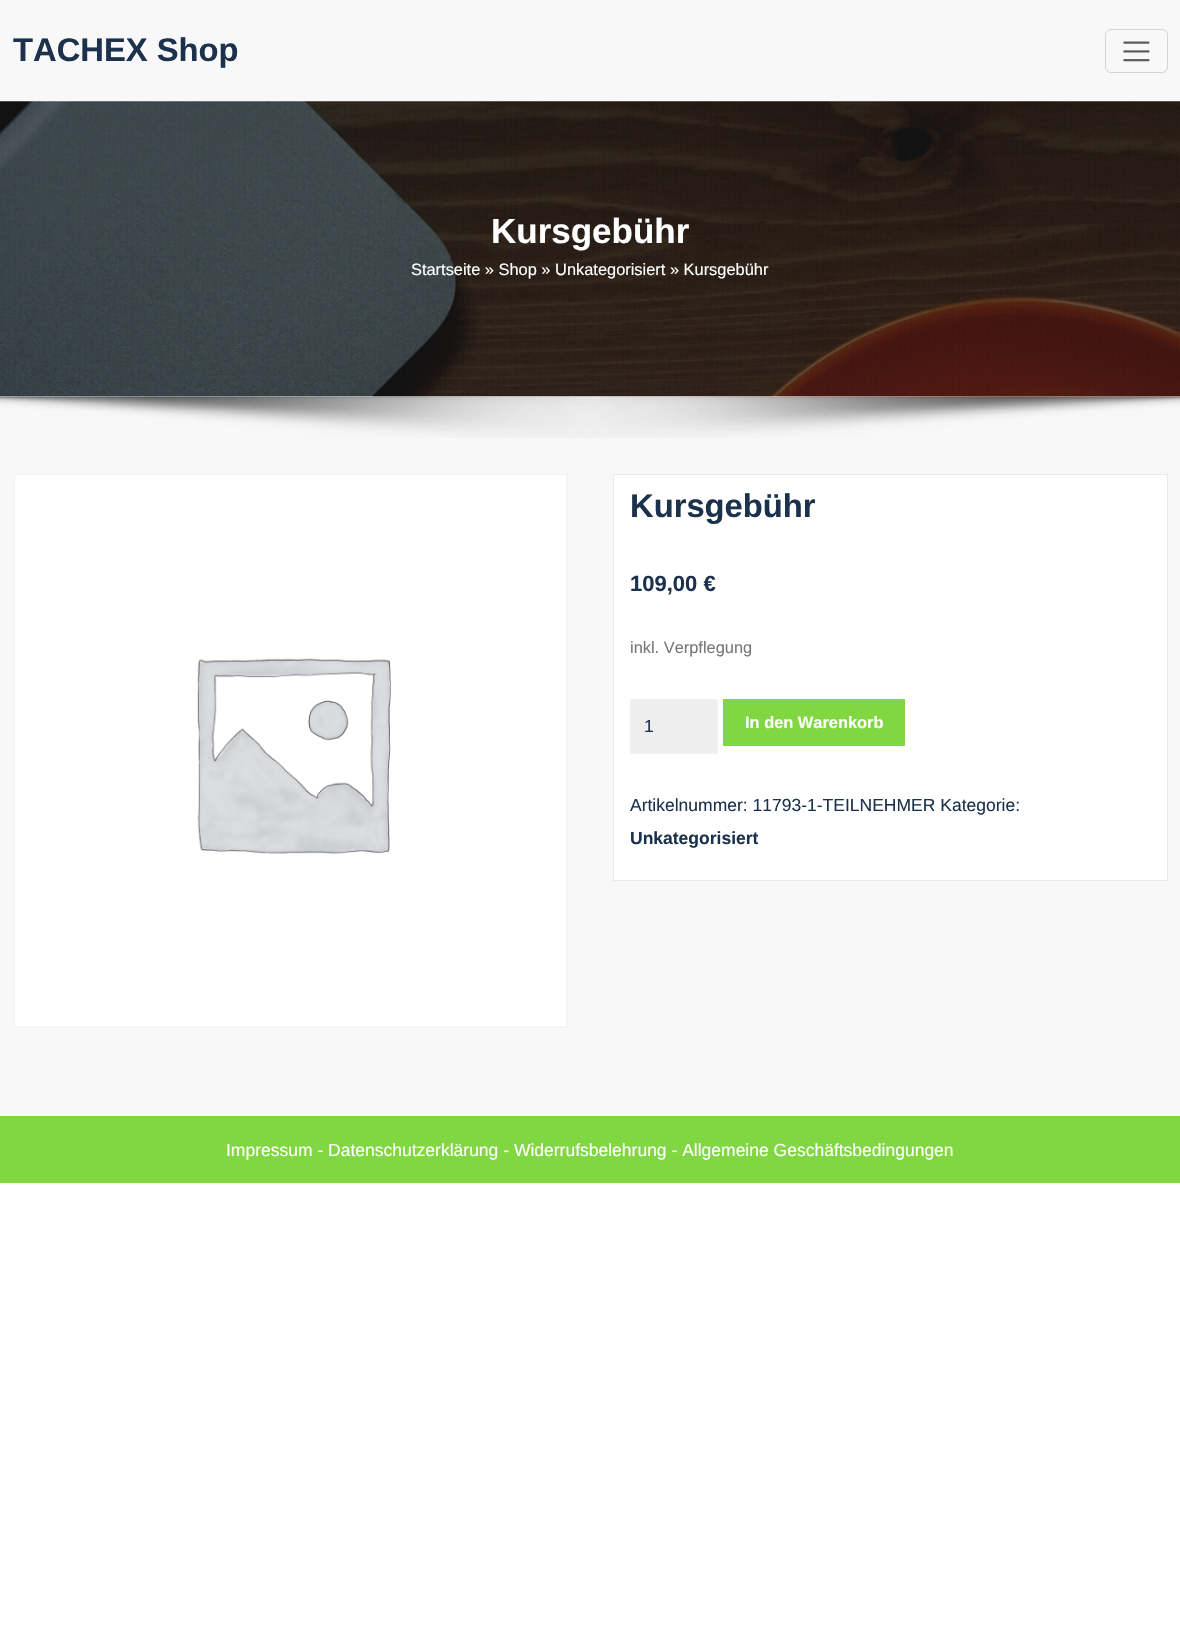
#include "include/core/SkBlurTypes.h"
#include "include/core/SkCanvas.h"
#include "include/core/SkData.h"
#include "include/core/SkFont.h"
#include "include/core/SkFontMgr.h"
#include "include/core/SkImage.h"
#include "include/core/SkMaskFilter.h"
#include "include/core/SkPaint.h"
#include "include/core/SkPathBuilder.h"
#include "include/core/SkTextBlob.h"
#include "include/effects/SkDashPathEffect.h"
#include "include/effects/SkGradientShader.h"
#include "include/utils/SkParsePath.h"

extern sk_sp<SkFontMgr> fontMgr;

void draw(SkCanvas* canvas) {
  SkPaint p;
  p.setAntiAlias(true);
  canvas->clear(SK_ColorWHITE);
  p.setColor(SkColorSetRGB(248, 248, 248));
  canvas->drawRect(SkRect::MakeLTRB(0, 0, 1180, 1116), p);
  p.setStyle(SkPaint::kStroke_Style);
  p.setStrokeWidth(1);
  p.setColor(SkColorSetRGB(211, 211, 211));
  canvas->drawRoundRect(SkRect::MakeLTRB(1105.5f, 29.5f, 1167.5f, 72.5f), 5.5f, 5.5f, p);
  canvas->drawImageRect(SkImages::DeferredFromEncodedData(SkData::MakeFromFileName("images/1.png")), SkRect::MakeLTRB(1123, 41, 1150, 62), SkSamplingOptions());
  canvas->drawImageRect(SkImages::DeferredFromEncodedData(SkData::MakeFromFileName("images/3.png")), SkRect::MakeLTRB(0, 396, 1180, 438), SkSamplingOptions());
  canvas->drawImageRect(SkImages::DeferredFromEncodedData(SkData::MakeFromFileName("images/2.png")), SkRect::MakeLTRB(0, 101, 1180, 397), SkSamplingOptions());
  p.setColor(SkColorSetRGB(242, 242, 242));
  canvas->drawRect(SkRect::MakeLTRB(14.5f, 474.5f, 567.5f, 1027.5f), p);
  canvas->drawImageRect(SkImages::DeferredFromEncodedData(SkData::MakeFromFileName("images/4.png")), SkRect::MakeLTRB(15, 475, 566, 1026), SkSamplingOptions());
  p.setStyle(SkPaint::kFill_Style);
  p.setColor(SK_ColorWHITE);
  canvas->drawRect(SkRect::MakeLTRB(613.5f, 474.5f, 1167.5f, 880.5f), p);
  p.setStyle(SkPaint::kStroke_Style);
  p.setColor(SkColorSetRGB(233, 233, 233));
  canvas->drawRect(SkRect::MakeLTRB(613.5f, 474.5f, 1167.5f, 880.5f), p);
  p.setStyle(SkPaint::kFill_Style);
  p.setColor(SkColorSetRGB(238, 238, 238));
  canvas->drawRect(SkRect::MakeLTRB(630.5f, 699.5f, 717.5f, 753.5f), p);
  p.setStyle(SkPaint::kStroke_Style);
  p.setColor(SkColorSetRGB(243, 243, 243));
  canvas->drawRect(SkRect::MakeLTRB(630.5f, 699.5f, 717.5f, 753.5f), p);
  p.setStyle(SkPaint::kFill_Style);
  p.setColor(SkColorSetRGB(129, 215, 66));
  canvas->drawRect(SkRect::MakeLTRB(723, 699, 905, 746), p);
  canvas->drawRect(SkRect::MakeLTRB(0, 1116, 1180, 1183), p);
  SkFont font1(fontMgr->matchFamilyStyle("Liberation Sans", SkFontStyle::Bold()), 32.75f);
  font1.setSubpixel(true);
  p.setColor(SkColorSetRGB(28, 49, 76));
  canvas->drawString("TACHEX Shop", 13, 61, font1, p);
  SkFont font2(fontMgr->matchFamilyStyle("Liberation Sans", SkFontStyle::Bold()), 35);
  font2.setSubpixel(true);
  p.setColor(SK_ColorWHITE);
  canvas->drawString("Kursgebühr", 491, 243, font2, p);
  SkFont font3(fontMgr->matchFamilyStyle("Liberation Sans", SkFontStyle::Normal()), 16.4f);
  font3.setSubpixel(true);
  canvas->drawString("Startseite » Shop » Unkategorisiert » Kursgebühr", 411, 275, font3, p);
  p.setColor(SkColorSetRGB(28, 49, 76));
  canvas->drawString("Kursgebühr", 630, 517, font1, p);
  SkFont font4(fontMgr->matchFamilyStyle("Liberation Sans", SkFontStyle::Bold()), 22);
  font4.setSubpixel(true);
  canvas->drawString("109,00 €", 630, 591, font4, p);
  p.setColor(SkColorSetRGB(119, 119, 119));
  canvas->drawString("inkl. Verpflegung", 630, 653, font3, p);
  SkFont font5(fontMgr->matchFamilyStyle("Liberation Sans", SkFontStyle::Normal()), 17.5f);
  font5.setSubpixel(true);
  p.setColor(SkColorSetRGB(28, 49, 76));
  canvas->drawString("1", 644, 732, font5, p);
  SkFont font6(fontMgr->matchFamilyStyle("Liberation Sans", SkFontStyle::Bold()), 16.4f);
  font6.setSubpixel(true);
  p.setColor(SK_ColorWHITE);
  canvas->drawString("In den Warenkorb", 745, 728, font6, p);
  p.setColor(SkColorSetRGB(28, 49, 76));
  canvas->drawString("Artikelnummer: 11793-1-TEILNEHMER Kategorie:", 630, 811, font5, p);
  SkFont font7(fontMgr->matchFamilyStyle("Liberation Sans", SkFontStyle::Bold()), 17.5f);
  font7.setSubpixel(true);
  canvas->drawString("Unkategorisiert", 630, 844, font7, p);
  p.setColor(SK_ColorWHITE);
  canvas->drawString("Impressum - Datenschutzerklärung - Widerrufsbelehrung - Allgemeine Geschäftsbedingungen", 226, 1156, font5, p);
}
